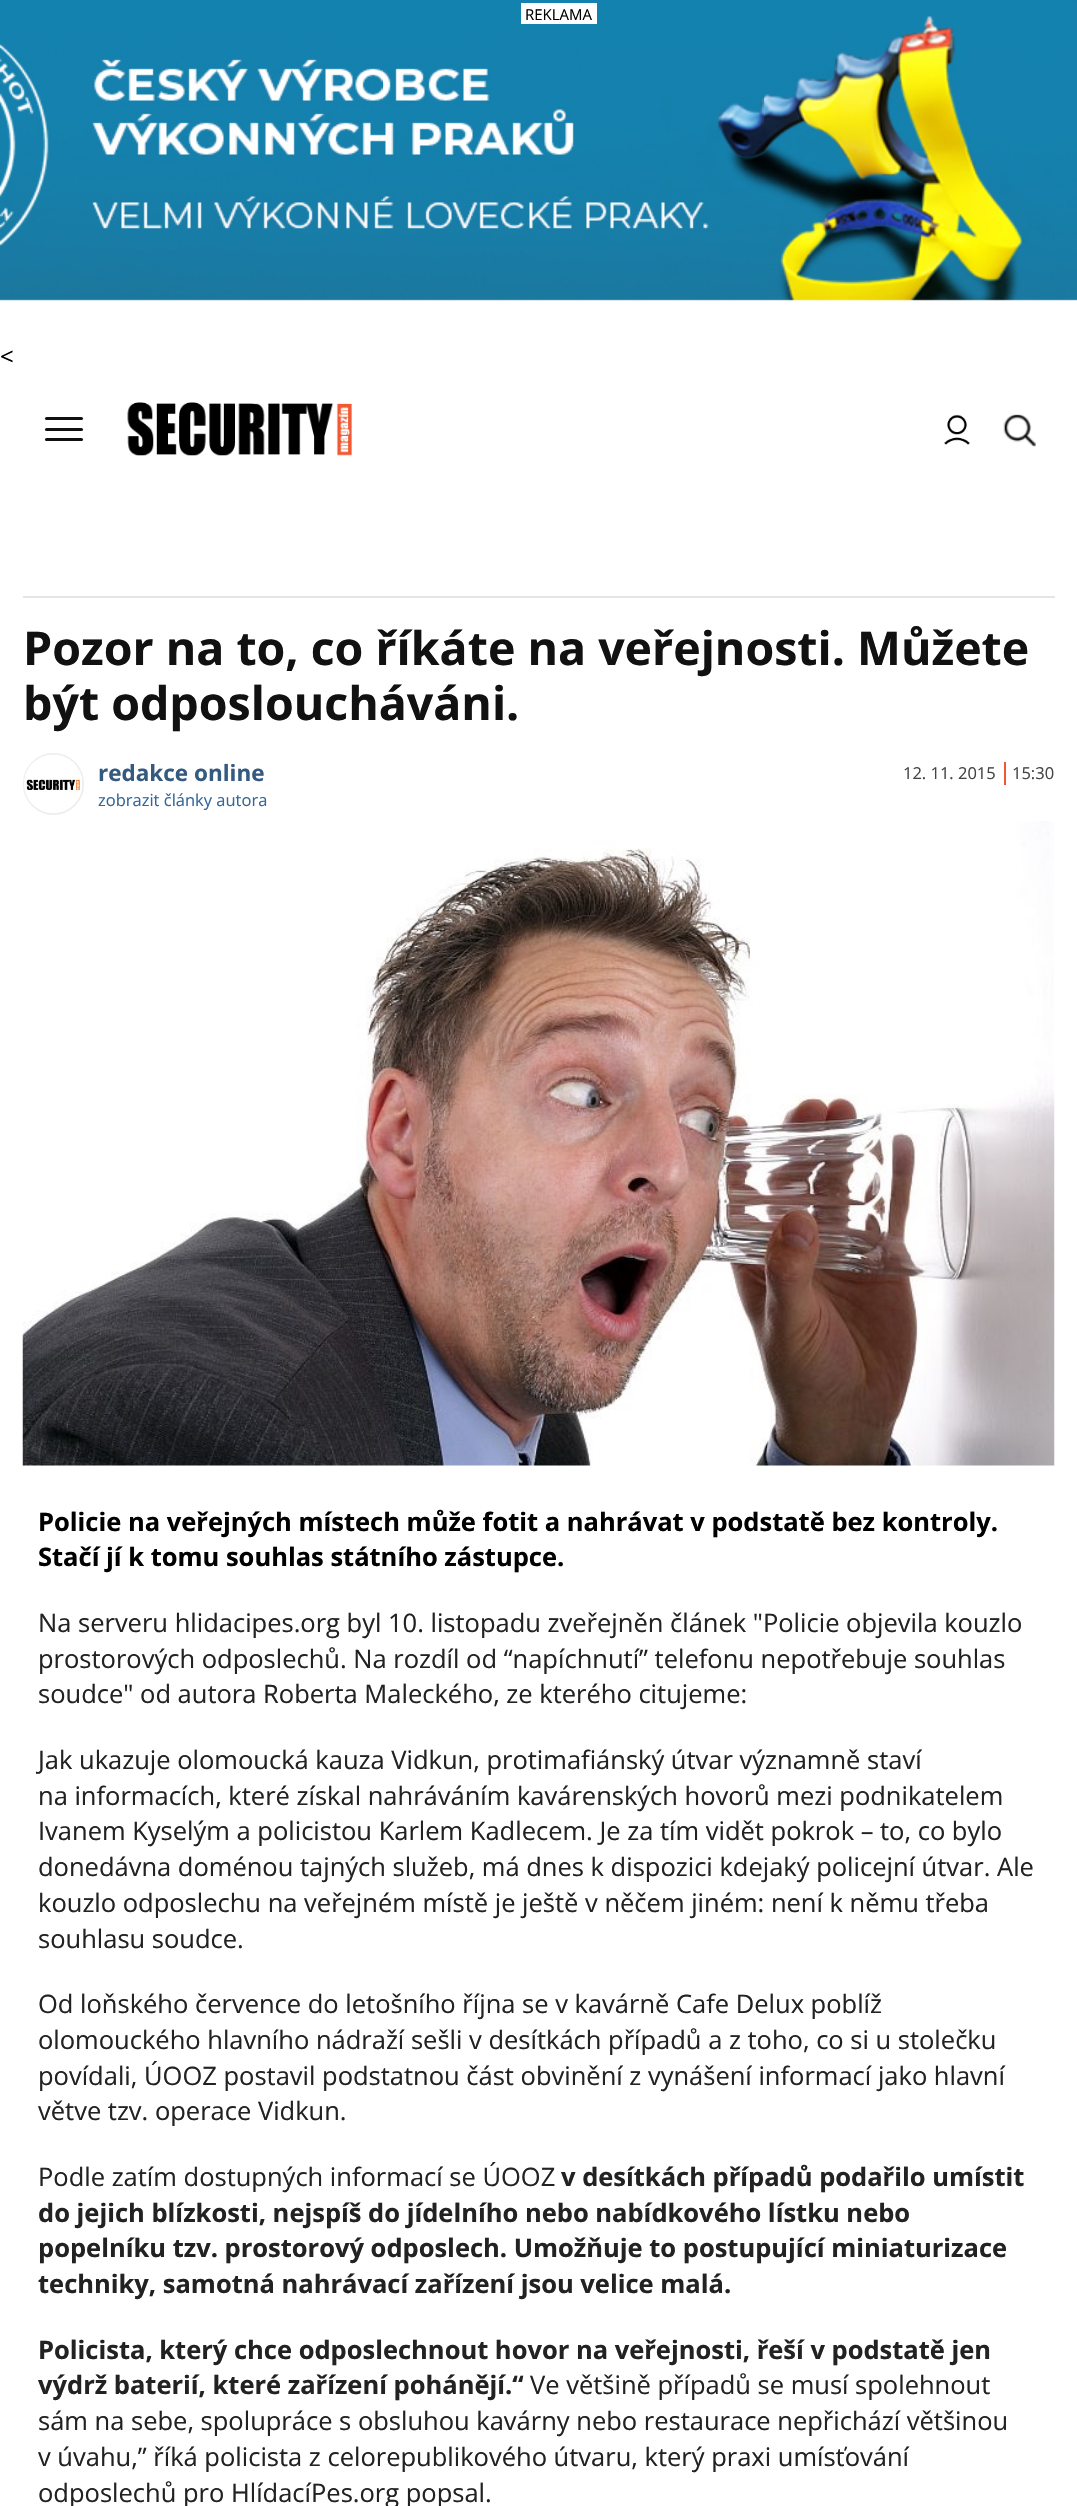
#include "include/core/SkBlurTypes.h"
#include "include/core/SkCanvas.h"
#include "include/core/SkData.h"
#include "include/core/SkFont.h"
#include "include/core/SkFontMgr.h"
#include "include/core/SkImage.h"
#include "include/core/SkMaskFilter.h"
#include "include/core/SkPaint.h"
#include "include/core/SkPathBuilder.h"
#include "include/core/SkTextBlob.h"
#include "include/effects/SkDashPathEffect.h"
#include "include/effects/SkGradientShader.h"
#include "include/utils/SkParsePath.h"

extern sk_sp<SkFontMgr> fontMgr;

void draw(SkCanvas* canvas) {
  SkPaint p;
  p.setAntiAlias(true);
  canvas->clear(SK_ColorWHITE);
  canvas->drawImageRect(SkImages::DeferredFromEncodedData(SkData::MakeFromFileName("images/1.png")), SkRect::MakeLTRB(0, 0, 1077, 372), SkSamplingOptions());
  p.setColor(SK_ColorWHITE);
  canvas->drawRect(SkRect::MakeLTRB(521, 3, 597, 24), p);
  p.setColor(SkColorSetRGB(17, 17, 17));
  canvas->drawRoundRect(SkRect::MakeLTRB(45, 417, 83, 420), 1.5f, 1.5f, p);
  canvas->drawRoundRect(SkRect::MakeLTRB(45, 428, 83, 431), 1.5f, 1.5f, p);
  canvas->drawRoundRect(SkRect::MakeLTRB(45, 438, 83, 441), 1.5f, 1.5f, p);
  canvas->drawImageRect(SkImages::DeferredFromEncodedData(SkData::MakeFromFileName("images/2.png")), SkRect::MakeLTRB(127, 402, 352, 456), SkSamplingOptions());
  canvas->drawImageRect(SkImages::DeferredFromEncodedData(SkData::MakeFromFileName("images/3.png")), SkRect::MakeLTRB(944, 414, 970, 445), SkSamplingOptions());
  canvas->drawImageRect(SkImages::DeferredFromEncodedData(SkData::MakeFromFileName("images/4.png")), SkRect::MakeLTRB(1003, 414, 1036, 447), SkSamplingOptions());
  p.setColor(SkColorSetRGB(229, 229, 229));
  canvas->drawRect(SkRect::MakeLTRB(23, 596, 1055, 598), p);
  p.setStyle(SkPaint::kStroke_Style);
  p.setStrokeWidth(2);
  p.setColor(SkColorSetRGB(238, 238, 238));
  canvas->drawRoundRect(SkRect::MakeLTRB(24, 754, 83, 814), 29.5f, 29.5f, p);
  canvas->drawImageRect(SkImages::DeferredFromEncodedData(SkData::MakeFromFileName("images/5.png")), SkRect::MakeLTRB(24, 754, 82, 813), SkSamplingOptions());
  p.setStyle(SkPaint::kFill_Style);
  p.setColor(SkColorSetRGB(241, 89, 51));
  canvas->drawRect(SkRect::MakeLTRB(1004, 762, 1006, 785), p);
  canvas->drawImageRect(SkImages::DeferredFromEncodedData(SkData::MakeFromFileName("images/6.png")), SkRect::MakeLTRB(22, 821, 1055, 1466), SkSamplingOptions());
  SkFont font1(fontMgr->matchFamilyStyle("Open Sans", SkFontStyle::Normal()), 15);
  font1.setSubpixel(true);
  p.setColor(SK_ColorBLACK);
  canvas->drawString("REKLAMA", 525, 20, font1, p);
  SkFont font2(fontMgr->matchFamilyStyle("Open Sans", SkFontStyle::Normal()), 24);
  font2.setSubpixel(true);
  canvas->drawString("<", 0, 365, font2, p);
  SkFont font3(fontMgr->matchFamilyStyle("Open Sans", SkFontStyle::Bold()), 46.5f);
  font3.setSubpixel(true);
  p.setColor(SkColorSetRGB(17, 17, 17));
  canvas->drawString("Pozor na to, co říkáte na veřejnosti. Můžete", 23, 665, font3, p);
  canvas->drawString("být odposloucháváni.", 23, 720, font3, p);
  SkFont font4(fontMgr->matchFamilyStyle("Open Sans", SkFontStyle::Bold()), 22.5f);
  font4.setSubpixel(true);
  p.setColor(SkColorSetRGB(53, 90, 128));
  canvas->drawString("redakce online", 98, 781, font4, p);
  SkFont font5(fontMgr->matchFamilyStyle("Open Sans", SkFontStyle::Normal()), 16.5f);
  font5.setSubpixel(true);
  p.setColor(SkColorSetRGB(51, 102, 153));
  canvas->drawString("zobrazit články autora", 98, 806, font5, p);
  p.setColor(SkColorSetRGB(68, 68, 68));
  canvas->drawString("12. 11. 2015", 903, 779, font5, p);
  canvas->drawString("15:30", 1012, 779, font5, p);
  SkFont font6(fontMgr->matchFamilyStyle("Open Sans", SkFontStyle::Bold()), 25.5f);
  font6.setSubpixel(true);
  p.setColor(SK_ColorBLACK);
  canvas->drawString("Policie na veřejných místech může fotit a nahrávat v podstatě bez kontroly.", 38, 1531, font6, p);
  canvas->drawString("Stačí jí k tomu souhlas státního zástupce.", 38, 1566, font6, p);
  SkFont font7(fontMgr->matchFamilyStyle("Open Sans", SkFontStyle::Normal()), 25.5f);
  font7.setSubpixel(true);
  p.setColor(SkColorSetRGB(34, 34, 34));
  canvas->drawString("Na serveru hlidacipes.org byl 10. listopadu zveřejněn článek \"Policie objevila kouzlo", 38, 1632, font7, p);
  canvas->drawString("prostorových odposlechů. Na rozdíl od “napíchnutí” telefonu nepotřebuje souhlas", 38, 1668, font7, p);
  canvas->drawString("soudce\" od autora Roberta Maleckého, ze kterého citujeme:", 38, 1703, font7, p);
  canvas->drawString("Jak ukazuje olomoucká kauza Vidkun, protimafiánský útvar významně staví", 38, 1769, font7, p);
  canvas->drawString("na informacích, které získal nahráváním kavárenských hovorů mezi podnikatelem", 38, 1805, font7, p);
  canvas->drawString("Ivanem Kyselým a policistou Karlem Kadlecem. Je za tím vidět pokrok – to, co bylo", 38, 1840, font7, p);
  canvas->drawString("donedávna doménou tajných služeb, má dnes k dispozici kdejaký policejní útvar. Ale", 38, 1876, font7, p);
  canvas->drawString("kouzlo odposlechu na veřejném místě je ještě v něčem jiném: není k němu třeba", 38, 1912, font7, p);
  canvas->drawString("souhlasu soudce.", 38, 1948, font7, p);
  canvas->drawString("Od loňského července do letošního října se v kavárně Cafe Delux poblíž", 38, 2013, font7, p);
  canvas->drawString("olomouckého hlavního nádraží sešli v desítkách případů a z toho, co si u stolečku", 38, 2049, font7, p);
  canvas->drawString("povídali, ÚOOZ postavil podstatnou část obvinění z vynášení informací jako hlavní", 38, 2085, font7, p);
  canvas->drawString("větve tzv. operace Vidkun.", 38, 2120, font7, p);
  canvas->drawString("Podle zatím dostupných informací se ÚOOZ", 38, 2186, font7, p);
  canvas->drawString("v desítkách případů podařilo umístit", 561, 2186, font6, p);
  canvas->drawString("do jejich blízkosti, nejspíš do jídelního nebo nabídkového lístku nebo", 38, 2222, font6, p);
  canvas->drawString("popelníku tzv. prostorový odposlech. Umožňuje to postupující miniaturizace", 38, 2257, font6, p);
  canvas->drawString("techniky, samotná nahrávací zařízení jsou velice malá.", 38, 2293, font6, p);
  canvas->drawString("Policista, který chce odposlechnout hovor na veřejnosti, řeší v podstatě jen", 38, 2359, font6, p);
  canvas->drawString("výdrž baterií, které zařízení pohánějí.“", 38, 2394, font6, p);
  canvas->drawString("Ve většině případů se musí spolehnout", 530, 2394, font7, p);
  canvas->drawString("sám na sebe, spolupráce s obsluhou kavárny nebo restaurace nepřichází většinou", 38, 2430, font7, p);
  canvas->drawString("v úvahu,” říká policista z celorepublikového útvaru, který praxi umísťování", 38, 2466, font7, p);
  canvas->drawString("odposlechů pro HlídacíPes.org popsal.", 38, 2502, font7, p);
}
